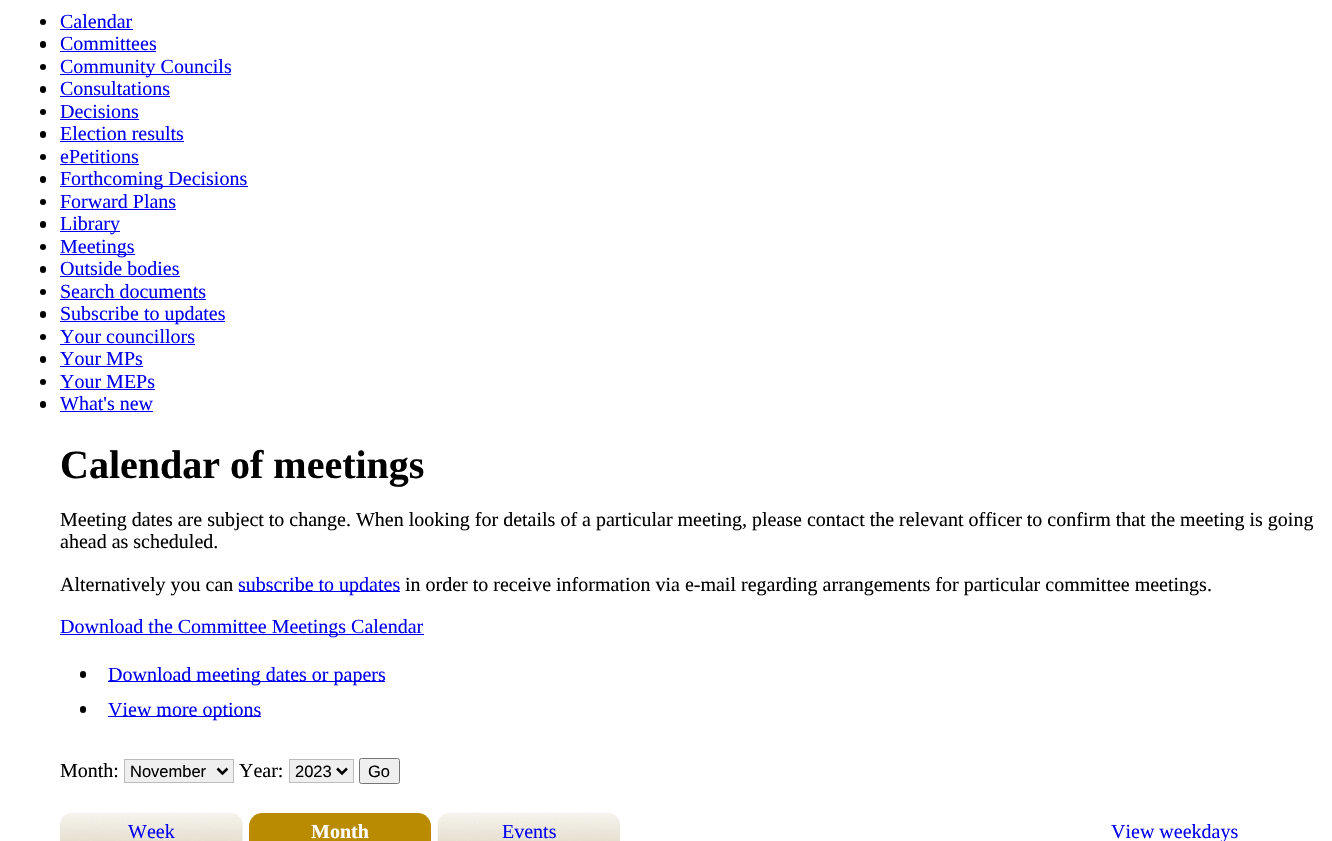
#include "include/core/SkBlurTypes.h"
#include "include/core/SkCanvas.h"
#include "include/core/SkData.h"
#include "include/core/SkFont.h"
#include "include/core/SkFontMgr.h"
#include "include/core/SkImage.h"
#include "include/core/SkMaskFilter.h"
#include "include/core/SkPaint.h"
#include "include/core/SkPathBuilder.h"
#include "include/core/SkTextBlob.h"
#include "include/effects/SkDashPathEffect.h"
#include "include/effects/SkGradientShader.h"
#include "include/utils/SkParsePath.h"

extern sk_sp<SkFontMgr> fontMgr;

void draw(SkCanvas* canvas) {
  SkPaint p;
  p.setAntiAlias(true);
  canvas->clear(SK_ColorWHITE);
  p.setColor(SK_ColorBLACK);
  canvas->drawCircle(43, 22, 3, p);
  p.setColor(SkColorSetRGB(0, 0, 238));
  canvas->drawRect(SkRect::MakeLTRB(60, 29, 133, 30), p);
  p.setColor(SK_ColorBLACK);
  canvas->drawRoundRect(SkRect::MakeLTRB(40, 41, 46, 48), 3, 3, p);
  p.setColor(SkColorSetRGB(0, 0, 238));
  canvas->drawRect(SkRect::MakeLTRB(60, 51, 156, 52), p);
  p.setColor(SK_ColorBLACK);
  canvas->drawCircle(43, 67, 3, p);
  p.setColor(SkColorSetRGB(0, 0, 238));
  canvas->drawRect(SkRect::MakeLTRB(60, 74, 231, 75), p);
  p.setColor(SK_ColorBLACK);
  canvas->drawRoundRect(SkRect::MakeLTRB(40, 86, 46, 93), 3, 3, p);
  p.setColor(SkColorSetRGB(0, 0, 238));
  canvas->drawRect(SkRect::MakeLTRB(60, 96, 170, 97), p);
  p.setColor(SK_ColorBLACK);
  canvas->drawCircle(43, 112, 3, p);
  p.setColor(SkColorSetRGB(0, 0, 238));
  canvas->drawRect(SkRect::MakeLTRB(60, 119, 139, 120), p);
  p.setColor(SK_ColorBLACK);
  canvas->drawRoundRect(SkRect::MakeLTRB(40, 131, 46, 138), 3, 3, p);
  p.setColor(SkColorSetRGB(0, 0, 238));
  canvas->drawRect(SkRect::MakeLTRB(60, 141, 184, 142), p);
  p.setColor(SK_ColorBLACK);
  canvas->drawCircle(43, 157, 3, p);
  p.setColor(SkColorSetRGB(0, 0, 238));
  canvas->drawRect(SkRect::MakeLTRB(60, 164, 139, 165), p);
  p.setColor(SK_ColorBLACK);
  canvas->drawRoundRect(SkRect::MakeLTRB(40, 176, 46, 183), 3, 3, p);
  p.setColor(SkColorSetRGB(0, 0, 238));
  canvas->drawRect(SkRect::MakeLTRB(60, 186, 248, 187), p);
  p.setColor(SK_ColorBLACK);
  canvas->drawCircle(43, 202, 3, p);
  p.setColor(SkColorSetRGB(0, 0, 238));
  canvas->drawRect(SkRect::MakeLTRB(60, 209, 176, 210), p);
  p.setColor(SK_ColorBLACK);
  canvas->drawRoundRect(SkRect::MakeLTRB(40, 221, 46, 228), 3, 3, p);
  p.setColor(SkColorSetRGB(0, 0, 238));
  canvas->drawRect(SkRect::MakeLTRB(60, 231, 120, 232), p);
  p.setColor(SK_ColorBLACK);
  canvas->drawCircle(43, 247, 3, p);
  p.setColor(SkColorSetRGB(0, 0, 238));
  canvas->drawRect(SkRect::MakeLTRB(60, 254, 135, 255), p);
  p.setColor(SK_ColorBLACK);
  canvas->drawRoundRect(SkRect::MakeLTRB(40, 266, 46, 273), 3, 3, p);
  p.setColor(SkColorSetRGB(0, 0, 238));
  canvas->drawRect(SkRect::MakeLTRB(60, 276, 180, 277), p);
  p.setColor(SK_ColorBLACK);
  canvas->drawCircle(43, 292, 3, p);
  p.setColor(SkColorSetRGB(0, 0, 238));
  canvas->drawRect(SkRect::MakeLTRB(60, 299, 206, 300), p);
  p.setColor(SK_ColorBLACK);
  canvas->drawRoundRect(SkRect::MakeLTRB(40, 311, 46, 318), 3, 3, p);
  p.setColor(SkColorSetRGB(0, 0, 238));
  canvas->drawRect(SkRect::MakeLTRB(60, 321, 225, 322), p);
  p.setColor(SK_ColorBLACK);
  canvas->drawCircle(43, 337, 3, p);
  p.setColor(SkColorSetRGB(0, 0, 238));
  canvas->drawRect(SkRect::MakeLTRB(60, 344, 195, 345), p);
  p.setColor(SK_ColorBLACK);
  canvas->drawRoundRect(SkRect::MakeLTRB(40, 356, 46, 363), 3, 3, p);
  p.setColor(SkColorSetRGB(0, 0, 238));
  canvas->drawRect(SkRect::MakeLTRB(60, 366, 143, 367), p);
  p.setColor(SK_ColorBLACK);
  canvas->drawCircle(43, 382, 3, p);
  p.setColor(SkColorSetRGB(0, 0, 238));
  canvas->drawRect(SkRect::MakeLTRB(60, 389, 155, 390), p);
  p.setColor(SK_ColorBLACK);
  canvas->drawRoundRect(SkRect::MakeLTRB(40, 401, 46, 408), 3, 3, p);
  p.setColor(SkColorSetRGB(0, 0, 238));
  canvas->drawRect(SkRect::MakeLTRB(60, 411, 153, 412), p);
  canvas->drawRect(SkRect::MakeLTRB(239, 591, 400, 592), p);
  canvas->drawRect(SkRect::MakeLTRB(60, 634, 424, 635), p);
  p.setColor(SK_ColorBLACK);
  canvas->drawRoundRect(SkRect::MakeLTRB(80, 671, 86, 678), 3, 3, p);
  p.setColor(SkColorSetRGB(0, 0, 238));
  canvas->drawRect(SkRect::MakeLTRB(108, 681, 385, 682), p);
  p.setColor(SK_ColorBLACK);
  canvas->drawRoundRect(SkRect::MakeLTRB(80, 706, 86, 713), 3, 3, p);
  p.setColor(SkColorSetRGB(0, 0, 238));
  canvas->drawRect(SkRect::MakeLTRB(108, 716, 261, 717), p);
  p.setColor(SkColorSetRGB(239, 239, 239));
  canvas->drawRect(SkRect::MakeLTRB(124.5f, 759.5f, 233.5f, 782.5f), p);
  p.setStyle(SkPaint::kStroke_Style);
  p.setStrokeWidth(1);
  p.setColor(SkColorSetRGB(189, 188, 188));
  canvas->drawRect(SkRect::MakeLTRB(124.5f, 759.5f, 233.5f, 782.5f), p);
  p.setStrokeWidth(2.5f);
  p.setColor(SK_ColorBLACK);
  canvas->drawPath(SkPathBuilder().moveTo(217.5f, 768.5f).lineTo(222.5f, 773.5f).lineTo(227.5f, 768.5f).detach(), p);
  p.setStyle(SkPaint::kFill_Style);
  p.setColor(SkColorSetRGB(239, 239, 239));
  canvas->drawRect(SkRect::MakeLTRB(289.5f, 759.5f, 353.5f, 782.5f), p);
  p.setStyle(SkPaint::kStroke_Style);
  p.setStrokeWidth(1);
  p.setColor(SkColorSetRGB(189, 188, 188));
  canvas->drawRect(SkRect::MakeLTRB(289.5f, 759.5f, 353.5f, 782.5f), p);
  p.setStrokeWidth(2.5f);
  p.setColor(SK_ColorBLACK);
  canvas->drawPath(SkPathBuilder().moveTo(337, 768.5f).lineTo(342, 773.5f).lineTo(347, 768.5f).detach(), p);
  p.setStyle(SkPaint::kFill_Style);
  p.setColor(SkColorSetRGB(239, 239, 239));
  canvas->drawRoundRect(SkRect::MakeLTRB(359.5f, 758.5f, 399.5f, 783.5f), 2, 2, p);
  p.setStyle(SkPaint::kStroke_Style);
  p.setStrokeWidth(1);
  p.setColor(SkColorSetRGB(118, 118, 118));
  canvas->drawRoundRect(SkRect::MakeLTRB(359.5f, 758.5f, 399.5f, 783.5f), 2, 2, p);
  p.setStyle(SkPaint::kFill_Style);
  p.setColor(SkColorSetRGB(243, 243, 243));
  canvas->drawPath(SkPathBuilder().moveTo(73, 813).lineTo(230, 813).cubicTo(237, 813, 243, 819, 243, 826).lineTo(243, 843).lineTo(60, 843).lineTo(60, 826).cubicTo(60, 819, 66, 813, 73, 813).close().detach(), p);
  canvas->drawImageRect(SkImages::DeferredFromEncodedData(SkData::MakeFromFileName("images/1.png")), SkRect::MakeLTRB(60, 812, 243, 841), SkSamplingOptions());
  p.setColor(SkColorSetRGB(185, 139, 0));
  canvas->drawPath(SkPathBuilder().moveTo(262, 813).lineTo(418, 813).cubicTo(425, 813, 431, 819, 431, 826).lineTo(431, 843).lineTo(249, 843).lineTo(249, 826).cubicTo(249, 819, 255, 813, 262, 813).close().detach(), p);
  canvas->drawImageRect(SkImages::DeferredFromEncodedData(SkData::MakeFromFileName("images/2.png")), SkRect::MakeLTRB(437, 812, 620, 841), SkSamplingOptions());
  SkFont font1(fontMgr->matchFamilyStyle("Liberation Serif", SkFontStyle::Normal()), 20);
  font1.setSubpixel(true);
  p.setColor(SkColorSetRGB(0, 0, 238));
  canvas->drawString("Calendar", 60, 28, font1, p);
  canvas->drawString("Committees", 60, 50, font1, p);
  canvas->drawString("Community Councils", 60, 73, font1, p);
  canvas->drawString("Consultations", 60, 95, font1, p);
  canvas->drawString("Decisions", 60, 118, font1, p);
  canvas->drawString("Election results", 60, 140, font1, p);
  canvas->drawString("ePetitions", 60, 163, font1, p);
  canvas->drawString("Forthcoming Decisions", 60, 185, font1, p);
  canvas->drawString("Forward Plans", 60, 208, font1, p);
  canvas->drawString("Library", 60, 230, font1, p);
  canvas->drawString("Meetings", 60, 253, font1, p);
  canvas->drawString("Outside bodies", 60, 275, font1, p);
  canvas->drawString("Search documents", 60, 298, font1, p);
  canvas->drawString("Subscribe to updates", 60, 320, font1, p);
  canvas->drawString("Your councillors", 60, 343, font1, p);
  canvas->drawString("Your MPs", 60, 365, font1, p);
  canvas->drawString("Your MEPs", 60, 388, font1, p);
  canvas->drawString("What's new", 60, 410, font1, p);
  SkFont font2(fontMgr->matchFamilyStyle("Liberation Serif", SkFontStyle::Bold()), 40);
  font2.setSubpixel(true);
  p.setColor(SK_ColorBLACK);
  canvas->drawString("Calendar of meetings", 60, 478, font2, p);
  canvas->drawString("Meeting dates are subject to change. When looking for details of a particular meeting, please contact the relevant officer to confirm that the meeting is going", 60, 526, font1, p);
  canvas->drawString("ahead as scheduled.", 60, 548, font1, p);
  canvas->drawString("Alternatively you can", 60, 591, font1, p);
  p.setColor(SkColorSetRGB(0, 0, 238));
  canvas->drawString("subscribe to updates", 238, 591, font1, p);
  p.setColor(SK_ColorBLACK);
  canvas->drawString("in order to receive information via e-mail regarding arrangements for particular committee meetings.", 405, 591, font1, p);
  p.setColor(SkColorSetRGB(0, 0, 238));
  canvas->drawString("Download the Committee Meetings Calendar", 60, 633, font1, p);
  canvas->drawString("Download meeting dates or papers", 108, 681, font1, p);
  canvas->drawString("View more options", 108, 716, font1, p);
  p.setColor(SK_ColorBLACK);
  canvas->drawString("Month:", 60, 777, font1, p);
  SkFont font3(fontMgr->matchFamilyStyle("Liberation Sans", SkFontStyle::Normal()), 16.5f);
  font3.setSubpixel(true);
  canvas->drawString("November", 130, 777, font3, p);
  canvas->drawString("Year:", 239, 777, font1, p);
  canvas->drawString("2023", 295, 777, font3, p);
  canvas->drawString("Go", 368, 777, font3, p);
  p.setColor(SkColorSetRGB(0, 0, 238));
  canvas->drawString("Week", 128, 838, font1, p);
  SkFont font4(fontMgr->matchFamilyStyle("Liberation Serif", SkFontStyle::Bold()), 20);
  font4.setSubpixel(true);
  p.setColor(SK_ColorWHITE);
  canvas->drawString("Month", 311, 838, font4, p);
  p.setColor(SkColorSetRGB(0, 0, 238));
  canvas->drawString("Events", 502, 838, font1, p);
  canvas->drawString("View weekdays", 1111, 838, font1, p);
}
